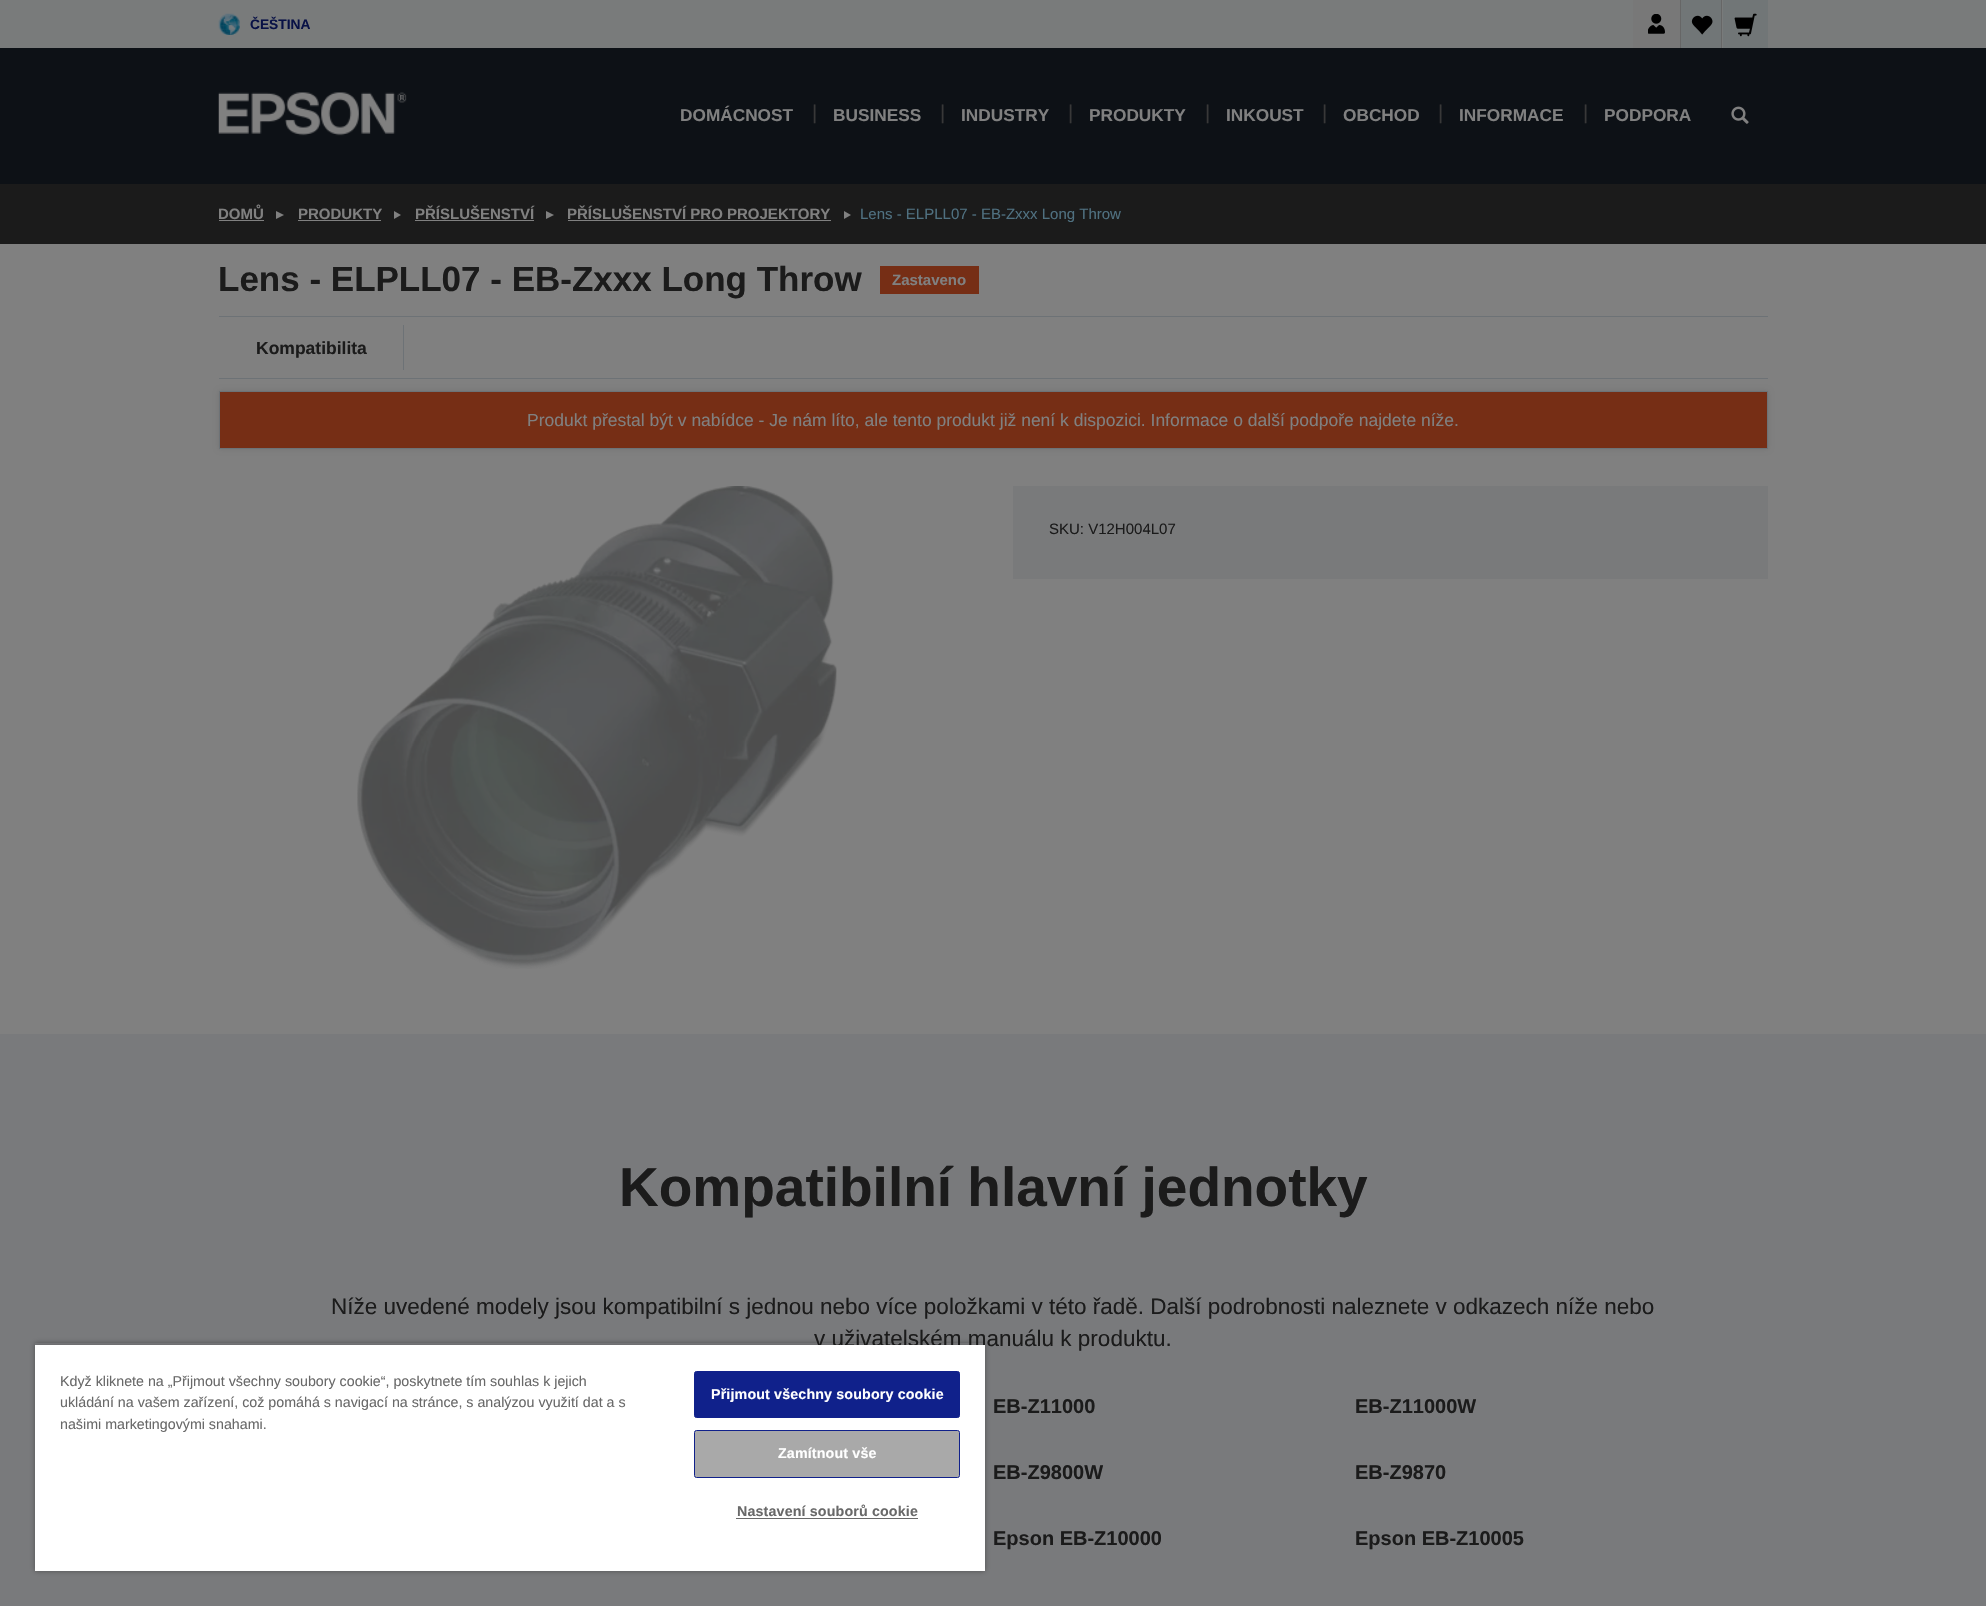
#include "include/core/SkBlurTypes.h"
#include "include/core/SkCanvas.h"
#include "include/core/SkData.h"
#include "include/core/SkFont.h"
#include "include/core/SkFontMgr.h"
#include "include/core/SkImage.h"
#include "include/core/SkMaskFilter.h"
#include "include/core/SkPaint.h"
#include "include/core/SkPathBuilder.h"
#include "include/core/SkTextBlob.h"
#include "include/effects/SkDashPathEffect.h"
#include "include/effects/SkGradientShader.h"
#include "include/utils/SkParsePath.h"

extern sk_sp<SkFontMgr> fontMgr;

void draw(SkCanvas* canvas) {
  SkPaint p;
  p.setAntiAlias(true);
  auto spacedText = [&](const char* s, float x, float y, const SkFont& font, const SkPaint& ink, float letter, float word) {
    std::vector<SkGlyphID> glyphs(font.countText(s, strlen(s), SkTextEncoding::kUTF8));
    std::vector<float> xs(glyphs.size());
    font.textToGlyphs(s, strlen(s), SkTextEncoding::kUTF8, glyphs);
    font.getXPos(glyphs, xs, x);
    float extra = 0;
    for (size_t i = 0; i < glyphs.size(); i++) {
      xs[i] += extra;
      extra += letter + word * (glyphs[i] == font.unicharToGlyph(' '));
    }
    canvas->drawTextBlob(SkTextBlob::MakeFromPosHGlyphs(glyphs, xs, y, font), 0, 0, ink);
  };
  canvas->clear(SkColorSetRGB(128, 128, 128));
  p.setColor(SkColorSetRGB(121, 123, 123));
  canvas->drawRect(SkRect::MakeLTRB(0, 0, 1986, 48), p);
  canvas->drawImageRect(SkImages::DeferredFromEncodedData(SkData::MakeFromFileName("images/1.png")), SkRect::MakeLTRB(218, 13, 240, 35), SkSamplingOptions());
  p.setColor(SkColorSetRGB(120, 120, 120));
  canvas->drawRect(SkRect::MakeLTRB(1633, 0, 1680, 48), p);
  canvas->drawImageRect(SkImages::DeferredFromEncodedData(SkData::MakeFromFileName("images/2.png")), SkRect::MakeLTRB(1648, 14, 1665, 34), SkSamplingOptions());
  p.setColor(SkColorSetRGB(113, 118, 119));
  canvas->drawRect(SkRect::MakeLTRB(1681, 0, 1721, 48), p);
  p.setColor(SkColorSetRGB(102, 102, 102));
  canvas->drawRect(SkRect::MakeLTRB(1680, 0, 1681, 48), p);
  canvas->drawImageRect(SkImages::DeferredFromEncodedData(SkData::MakeFromFileName("images/3.png")), SkRect::MakeLTRB(1691, 15, 1713, 35), SkSamplingOptions());
  canvas->drawRect(SkRect::MakeLTRB(1721, 0, 1722, 48), p);
  p.setColor(SkColorSetRGB(113, 118, 119));
  canvas->drawRect(SkRect::MakeLTRB(1723, 0, 1768, 48), p);
  canvas->drawImageRect(SkImages::DeferredFromEncodedData(SkData::MakeFromFileName("images/4.png")), SkRect::MakeLTRB(1734, 13, 1757, 37), SkSamplingOptions());
  p.setColor(SkColorSetRGB(13, 17, 22));
  canvas->drawRect(SkRect::MakeLTRB(0, 48, 1986, 184), p);
  canvas->drawImageRect(SkImages::DeferredFromEncodedData(SkData::MakeFromFileName("images/5.png")), SkRect::MakeLTRB(218, 92, 407, 136), SkSamplingOptions());
  canvas->drawImageRect(SkImages::DeferredFromEncodedData(SkData::MakeFromFileName("images/6.png")), SkRect::MakeLTRB(1731, 106, 1749, 124), SkSamplingOptions());
  p.setColor(SkColorSetRGB(27, 27, 27));
  canvas->drawRect(SkRect::MakeLTRB(0, 184, 1986, 244), p);
  p.setColor(SkColorSetRGB(128, 128, 128));
  canvas->drawRect(SkRect::MakeLTRB(219, 220, 264, 221), p);
  canvas->drawPath(SkPathBuilder().moveTo(276, 219).lineTo(276, 211).lineTo(284, 215).close().detach(), p);
  canvas->drawRect(SkRect::MakeLTRB(298, 220, 381, 221), p);
  canvas->drawPath(SkPathBuilder().moveTo(394, 219).lineTo(394, 211).lineTo(401, 215).close().detach(), p);
  canvas->drawRect(SkRect::MakeLTRB(415, 220, 534, 221), p);
  canvas->drawPath(SkPathBuilder().moveTo(546, 219).lineTo(546, 211).lineTo(554, 215).close().detach(), p);
  canvas->drawRect(SkRect::MakeLTRB(568, 220, 831, 221), p);
  canvas->drawPath(SkPathBuilder().moveTo(844, 219).lineTo(844, 211).lineTo(851, 215).close().detach(), p);
  p.setColor(SkColorSetRGB(118, 46, 21));
  canvas->drawRect(SkRect::MakeLTRB(880, 266, 979, 294), p);
  p.setColor(SkColorSetRGB(109, 114, 118));
  canvas->drawRect(SkRect::MakeLTRB(219, 316, 1768, 317), p);
  canvas->drawRect(SkRect::MakeLTRB(219, 378, 1768, 379), p);
  canvas->drawRect(SkRect::MakeLTRB(403, 325, 404, 370), p);
  p.setColor(SkColorSetARGB(26, 0, 0, 0));
  p.setMaskFilter(SkMaskFilter::MakeBlur(kNormal_SkBlurStyle, 2.5f));
  canvas->drawRect(SkRect::MakeLTRB(219, 391, 1768, 449), p);
  p.setMaskFilter(nullptr);
  p.setColor(SkColorSetRGB(118, 46, 21));
  canvas->drawRect(SkRect::MakeLTRB(219.5f, 391.5f, 1767.5f, 448.5f), p);
  p.setStyle(SkPaint::kStroke_Style);
  p.setStrokeWidth(1);
  p.setColor(SkColorSetRGB(109, 114, 118));
  canvas->drawRect(SkRect::MakeLTRB(219.5f, 391.5f, 1767.5f, 448.5f), p);
  canvas->drawImageRect(SkImages::DeferredFromEncodedData(SkData::MakeFromFileName("images/7.png")), SkRect::MakeLTRB(357, 486, 837, 969), SkSamplingOptions());
  p.setStyle(SkPaint::kFill_Style);
  p.setColor(SkColorSetRGB(121, 122, 123));
  canvas->drawRect(SkRect::MakeLTRB(1013, 486, 1768, 579), p);
  p.setColor(SkColorSetRGB(121, 122, 124));
  canvas->drawRect(SkRect::MakeLTRB(0, 1034, 1986, 1606), p);
  canvas->save();
  canvas->clipPath(SkPathBuilder(SkPathFillType::kEvenOdd).moveTo(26, 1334).lineTo(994, 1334).lineTo(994, 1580).lineTo(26, 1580).close().moveTo(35, 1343).lineTo(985, 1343).lineTo(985, 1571).lineTo(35, 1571).close().detach(), true);
  p.setColor(SkColorSetARGB(89, 0, 0, 0));
  p.setMaskFilter(SkMaskFilter::MakeBlur(kNormal_SkBlurStyle, 2.5f));
  canvas->drawRect(SkRect::MakeLTRB(35, 1343, 985, 1571), p);
  p.setMaskFilter(nullptr);
  canvas->restore();
  canvas->save();
  canvas->clipRect(SkRect::MakeLTRB(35, 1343, 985, 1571));
  p.setColor(SkColorSetARGB(51, 0, 0, 0));
  p.setMaskFilter(SkMaskFilter::MakeBlur(kNormal_SkBlurStyle, 2.5f));
  canvas->drawRect(SkRect::MakeLTRB(35, 1345, 985, 1571), p);
  p.setMaskFilter(nullptr);
  canvas->restore();
  SkFont font1(fontMgr->matchFamilyStyle("Liberation Sans", SkFontStyle::Bold()), 13.75f);
  font1.setSubpixel(true);
  p.setColor(SkColorSetRGB(8, 17, 70));
  canvas->drawString("ČEŠTINA", 250, 29, font1, p);
  SkFont font2(fontMgr->matchFamilyStyle("Liberation Sans", SkFontStyle::Bold()), 17.25f);
  font2.setSubpixel(true);
  p.setColor(SkColorSetRGB(128, 128, 128));
  canvas->drawString("DOMÁCNOST", 680, 121, font2, p);
  SkFont font3(fontMgr->matchFamilyStyle("Liberation Sans", SkFontStyle::Normal()), 20);
  font3.setSubpixel(true);
  p.setColor(SkColorSetRGB(56, 56, 56));
  canvas->drawString("|", 812, 119, font3, p);
  p.setColor(SkColorSetRGB(128, 128, 128));
  canvas->drawString("BUSINESS", 833, 121, font2, p);
  p.setColor(SkColorSetRGB(56, 56, 56));
  canvas->drawString("|", 940, 119, font3, p);
  p.setColor(SkColorSetRGB(128, 128, 128));
  canvas->drawString("INDUSTRY", 961, 121, font2, p);
  p.setColor(SkColorSetRGB(56, 56, 56));
  canvas->drawString("|", 1068, 119, font3, p);
  p.setColor(SkColorSetRGB(128, 128, 128));
  canvas->drawString("PRODUKTY", 1089, 121, font2, p);
  p.setColor(SkColorSetRGB(56, 56, 56));
  canvas->drawString("|", 1205, 119, font3, p);
  p.setColor(SkColorSetRGB(128, 128, 128));
  canvas->drawString("INKOUST", 1226, 121, font2, p);
  p.setColor(SkColorSetRGB(56, 56, 56));
  canvas->drawString("|", 1322, 119, font3, p);
  p.setColor(SkColorSetRGB(128, 128, 128));
  canvas->drawString("OBCHOD", 1343, 121, font2, p);
  p.setColor(SkColorSetRGB(56, 56, 56));
  canvas->drawString("|", 1438, 119, font3, p);
  p.setColor(SkColorSetRGB(128, 128, 128));
  canvas->drawString("INFORMACE", 1459, 121, font2, p);
  p.setColor(SkColorSetRGB(56, 56, 56));
  canvas->drawString("|", 1583, 119, font3, p);
  p.setColor(SkColorSetRGB(128, 128, 128));
  canvas->drawString("PODPORA", 1604, 121, font2, p);
  SkFont font4(fontMgr->matchFamilyStyle("Liberation Sans", SkFontStyle::Bold()), 15);
  font4.setSubpixel(true);
  canvas->drawString("DOMŮ", 218, 219, font4, p);
  canvas->drawString("PRODUKTY", 298, 219, font4, p);
  canvas->drawString("PŘÍSLUŠENSTVÍ", 415, 219, font4, p);
  canvas->drawString("PŘÍSLUŠENSTVÍ PRO PROJEKTORY", 567, 219, font4, p);
  SkFont font5(fontMgr->matchFamilyStyle("Liberation Sans", SkFontStyle::Normal()), 15);
  font5.setSubpixel(true);
  p.setColor(SkColorSetRGB(79, 112, 128));
  canvas->drawString("Lens - ELPLL07 - EB-Zxxx Long Throw", 860, 219, font5, p);
  SkFont font6(fontMgr->matchFamilyStyle("Liberation Sans", SkFontStyle::Bold()), 35);
  font6.setSubpixel(true);
  p.setColor(SkColorSetRGB(27, 27, 27));
  canvas->drawString("Lens - ELPLL07 - EB-Zxxx Long Throw", 218, 291, font6, p);
  p.setColor(SkColorSetRGB(128, 128, 128));
  canvas->drawString("Zastaveno", 892, 285, font4, p);
  SkFont font7(fontMgr->matchFamilyStyle("Liberation Sans", SkFontStyle::Bold()), 17.5f);
  font7.setSubpixel(true);
  p.setColor(SkColorSetRGB(27, 27, 27));
  canvas->drawString("Kompatibilita", 256, 354, font7, p);
  SkFont font8(fontMgr->matchFamilyStyle("Liberation Sans", SkFontStyle::Normal()), 17.5f);
  font8.setSubpixel(true);
  p.setColor(SkColorSetRGB(128, 128, 128));
  canvas->drawString("Produkt přestal být v nabídce - Je nám líto, ale tento produkt již není k dispozici. Informace o další podpoře najdete níže.", 527, 426, font8, p);
  p.setColor(SkColorSetRGB(27, 27, 27));
  canvas->drawString("SKU: V12H004L07", 1049, 534, font5, p);
  SkFont font9(fontMgr->matchFamilyStyle("Liberation Sans", SkFontStyle::Bold()), 55);
  font9.setSubpixel(true);
  canvas->drawString("Kompatibilní hlavní jednotky", 619, 1206, font9, p);
  SkFont font10(fontMgr->matchFamilyStyle("Liberation Sans", SkFontStyle::Normal()), 22.5f);
  font10.setSubpixel(true);
  canvas->drawString("Níže uvedené modely jsou kompatibilní s jednou nebo více položkami v této řadě. Další podrobnosti naleznete v odkazech níže nebo", 331, 1314, font10, p);
  canvas->drawString("v uživatelském manuálu k produktu.", 814, 1346, font10, p);
  SkFont font11(fontMgr->matchFamilyStyle("Liberation Sans", SkFontStyle::Bold()), 20);
  font11.setSubpixel(true);
  canvas->drawString("EB-Z11000", 993, 1413, font11, p);
  canvas->drawString("EB-Z11000W", 1355, 1413, font11, p);
  canvas->drawString("EB-Z9800W", 993, 1479, font11, p);
  canvas->drawString("EB-Z9870", 1355, 1479, font11, p);
  canvas->drawString("Epson EB-Z10000", 993, 1545, font11, p);
  canvas->drawString("Epson EB-Z10005", 1355, 1545, font11, p);
  p.setColor(SK_ColorWHITE);
  canvas->drawRect(SkRect::MakeLTRB(35, 1345, 985, 1571), p);
  SkFont font12(fontMgr->matchFamilyStyle("Liberation Sans", SkFontStyle::Normal()), 14.25f);
  font12.setSubpixel(true);
  p.setColor(SkColorSetRGB(105, 105, 105));
  canvas->drawString("Když kliknete na „Přijmout všechny soubory cookie“, poskytnete tím souhlas k jejich", 60, 1386, font12, p);
  canvas->drawString("ukládání na vašem zařízení, což pomáhá s navigací na stránce, s analýzou využití dat a s", 60, 1407, font12, p);
  canvas->drawString("našimi marketingovými snahami.", 60, 1429, font12, p);
  p.setColor(SkColorSetRGB(16, 33, 139));
  canvas->drawRoundRect(SkRect::MakeLTRB(694.5f, 1371.5f, 959.5f, 1417.5f), 2, 2, p);
  p.setStyle(SkPaint::kStroke_Style);
  canvas->drawRoundRect(SkRect::MakeLTRB(694.5f, 1371.5f, 959.5f, 1417.5f), 2, 2, p);
  SkFont font13(fontMgr->matchFamilyStyle("Liberation Sans", SkFontStyle::Bold()), 14.25f);
  font13.setSubpixel(true);
  p.setStyle(SkPaint::kFill_Style);
  p.setColor(SK_ColorWHITE);
  spacedText("Přijmout všechny soubory cookie", 711, 1399, font13, p, 0.15f, 0);
  p.setColor(SkColorSetRGB(169, 169, 169));
  canvas->drawRoundRect(SkRect::MakeLTRB(694.5f, 1430.5f, 959.5f, 1477.5f), 2, 2, p);
  p.setStyle(SkPaint::kStroke_Style);
  p.setColor(SkColorSetRGB(16, 33, 139));
  canvas->drawRoundRect(SkRect::MakeLTRB(694.5f, 1430.5f, 959.5f, 1477.5f), 2, 2, p);
  p.setStyle(SkPaint::kFill_Style);
  p.setColor(SK_ColorWHITE);
  spacedText("Zamítnout vše", 778, 1458, font13, p, 0.15f, 0);
  p.setColor(SkColorSetRGB(105, 105, 105));
  spacedText("Nastavení souborů cookie", 737, 1516, font13, p, 0.15f, 0);
  canvas->drawRect(SkRect::MakeLTRB(736, 1518, 918, 1519), p);
}
